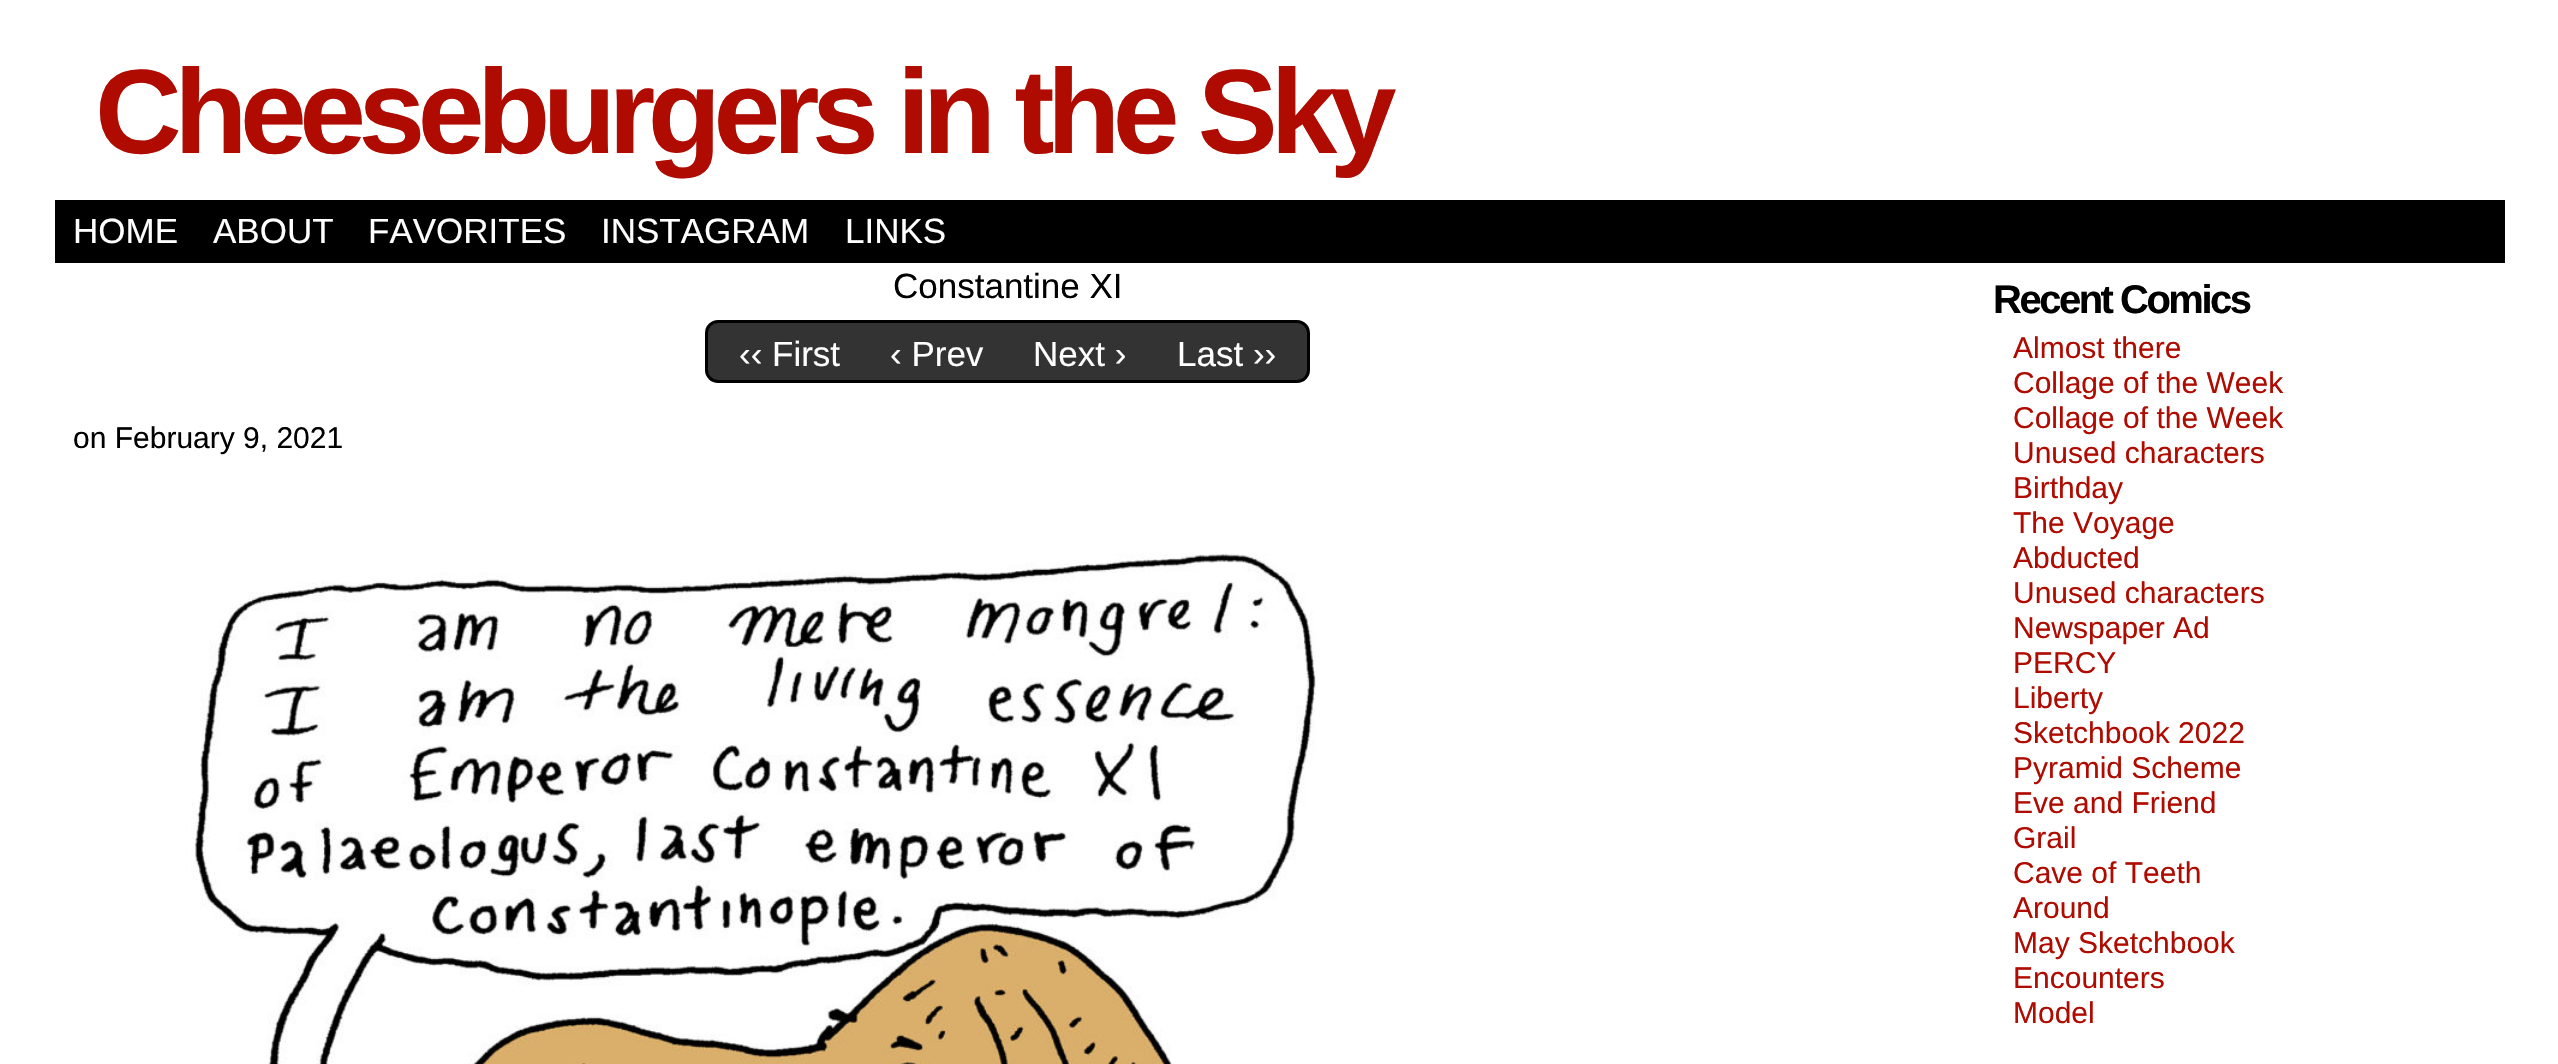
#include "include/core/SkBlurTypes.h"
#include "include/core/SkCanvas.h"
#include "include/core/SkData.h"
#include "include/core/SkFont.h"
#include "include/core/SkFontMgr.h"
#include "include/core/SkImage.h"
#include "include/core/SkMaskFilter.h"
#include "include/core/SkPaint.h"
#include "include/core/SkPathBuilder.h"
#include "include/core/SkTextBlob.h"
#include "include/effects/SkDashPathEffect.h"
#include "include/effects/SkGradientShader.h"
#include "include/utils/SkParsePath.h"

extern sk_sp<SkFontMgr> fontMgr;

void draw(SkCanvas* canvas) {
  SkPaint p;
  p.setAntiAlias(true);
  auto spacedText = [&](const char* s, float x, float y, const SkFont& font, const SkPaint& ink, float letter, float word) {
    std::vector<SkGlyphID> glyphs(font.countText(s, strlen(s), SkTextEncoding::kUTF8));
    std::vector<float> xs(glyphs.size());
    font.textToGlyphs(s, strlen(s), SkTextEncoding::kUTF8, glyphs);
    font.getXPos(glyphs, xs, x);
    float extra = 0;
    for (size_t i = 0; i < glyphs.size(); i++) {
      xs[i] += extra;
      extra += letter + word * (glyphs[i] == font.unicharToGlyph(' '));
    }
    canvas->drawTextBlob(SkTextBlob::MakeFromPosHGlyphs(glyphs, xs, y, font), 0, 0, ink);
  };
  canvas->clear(SK_ColorWHITE);
  p.setColor(SK_ColorBLACK);
  canvas->drawRect(SkRect::MakeLTRB(55, 200, 2505, 263), p);
  p.setColor(SkColorSetRGB(51, 51, 51));
  canvas->drawRoundRect(SkRect::MakeLTRB(706.5f, 321.5f, 1308.5f, 381.5f), 11.5f, 11.5f, p);
  p.setStyle(SkPaint::kStroke_Style);
  p.setStrokeWidth(3);
  p.setColor(SK_ColorBLACK);
  canvas->drawRoundRect(SkRect::MakeLTRB(706.5f, 321.5f, 1308.5f, 381.5f), 11.5f, 11.5f, p);
  canvas->drawImageRect(SkImages::DeferredFromEncodedData(SkData::MakeFromFileName("images/1.png")), SkRect::MakeLTRB(191, 553, 1316, 1064), SkSamplingOptions());
  SkFont font1(fontMgr->matchFamilyStyle("Liberation Sans", SkFontStyle::Bold()), 120);
  font1.setSubpixel(true);
  p.setStyle(SkPaint::kFill_Style);
  p.setColor(SkColorSetRGB(176, 11, 0));
  spacedText("Cheeseburgers in the Sky", 95, 153, font1, p, -7.5f, 0);
  SkFont font2(fontMgr->matchFamilyStyle("Liberation Sans", SkFontStyle::Normal()), 35);
  font2.setSubpixel(true);
  p.setColor(SK_ColorWHITE);
  canvas->drawString("HOME", 73, 243, font2, p);
  canvas->drawString("ABOUT", 213, 243, font2, p);
  canvas->drawString("FAVORITES", 368, 243, font2, p);
  canvas->drawString("INSTAGRAM", 601, 243, font2, p);
  canvas->drawString("LINKS", 845, 243, font2, p);
  p.setColor(SK_ColorBLACK);
  canvas->drawString("Constantine XI", 893, 298, font2, p);
  p.setColor(SK_ColorWHITE);
  canvas->drawString("‹‹ First", 739, 366, font2, p);
  canvas->drawString("‹ Prev", 890, 366, font2, p);
  canvas->drawString("Next ›", 1033, 366, font2, p);
  canvas->drawString("Last ››", 1177, 366, font2, p);
  SkFont font3(fontMgr->matchFamilyStyle("Liberation Sans", SkFontStyle::Normal()), 30);
  font3.setSubpixel(true);
  p.setColor(SK_ColorBLACK);
  canvas->drawString("on February 9, 2021", 73, 448, font3, p);
  SkFont font4(fontMgr->matchFamilyStyle("Liberation Sans", SkFontStyle::Bold()), 40);
  font4.setSubpixel(true);
  spacedText("Recent Comics", 1993, 313, font4, p, -2.5f, 0);
  p.setColor(SkColorSetRGB(176, 11, 0));
  canvas->drawString("Almost there", 2013, 358, font3, p);
  canvas->drawString("Collage of the Week", 2013, 393, font3, p);
  canvas->drawString("Collage of the Week", 2013, 428, font3, p);
  canvas->drawString("Unused characters", 2013, 463, font3, p);
  canvas->drawString("Birthday", 2013, 498, font3, p);
  canvas->drawString("The Voyage", 2013, 533, font3, p);
  canvas->drawString("Abducted", 2013, 568, font3, p);
  canvas->drawString("Unused characters", 2013, 603, font3, p);
  canvas->drawString("Newspaper Ad", 2013, 638, font3, p);
  canvas->drawString("PERCY", 2013, 673, font3, p);
  canvas->drawString("Liberty", 2013, 708, font3, p);
  canvas->drawString("Sketchbook 2022", 2013, 743, font3, p);
  canvas->drawString("Pyramid Scheme", 2013, 778, font3, p);
  canvas->drawString("Eve and Friend", 2013, 813, font3, p);
  canvas->drawString("Grail", 2013, 848, font3, p);
  canvas->drawString("Cave of Teeth", 2013, 883, font3, p);
  canvas->drawString("Around", 2013, 918, font3, p);
  canvas->drawString("May Sketchbook", 2013, 953, font3, p);
  canvas->drawString("Encounters", 2013, 988, font3, p);
  canvas->drawString("Model", 2013, 1023, font3, p);
}
